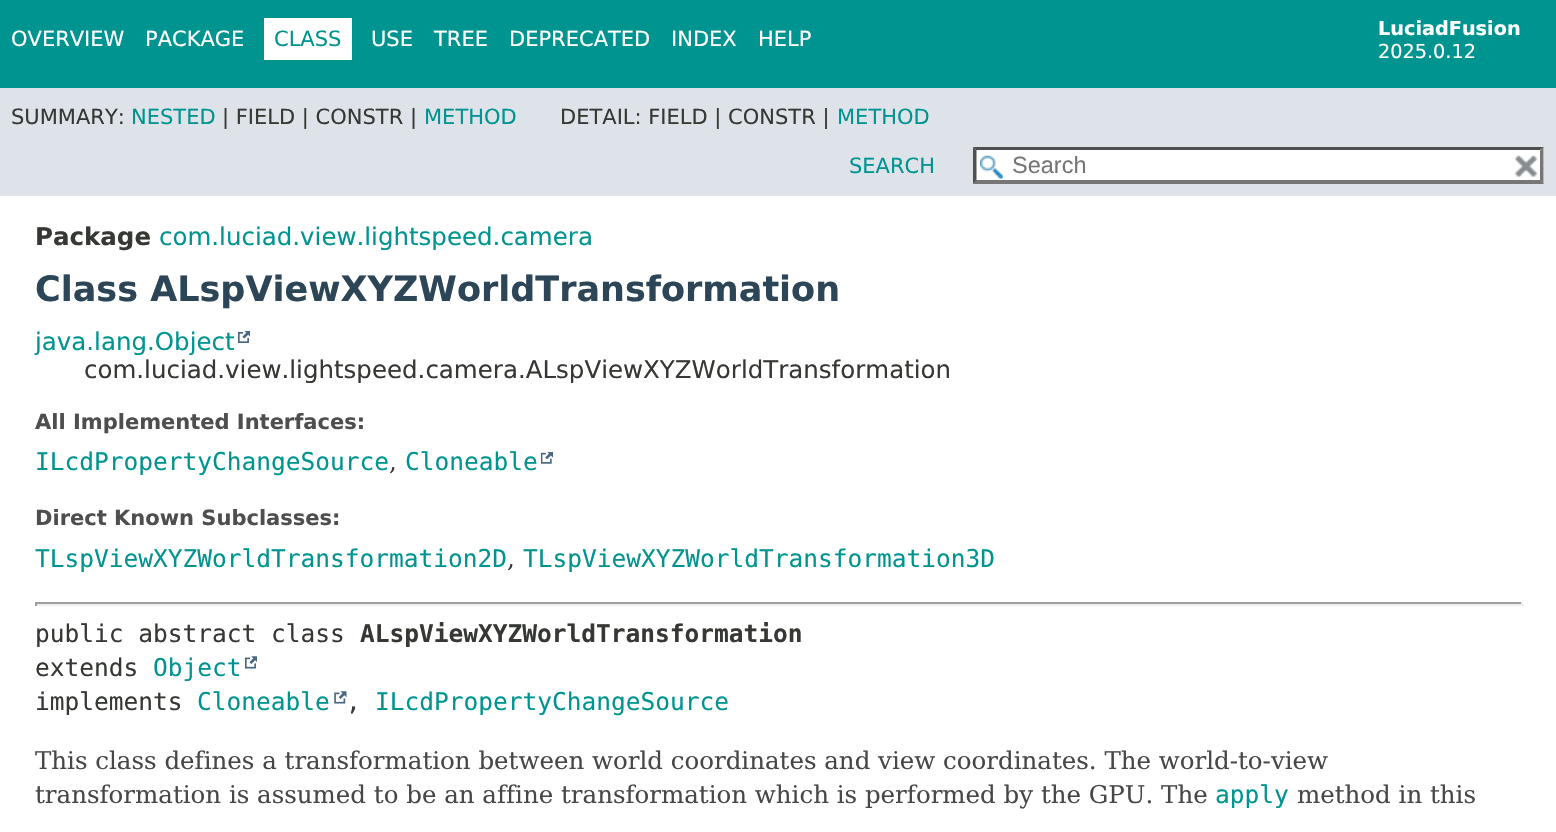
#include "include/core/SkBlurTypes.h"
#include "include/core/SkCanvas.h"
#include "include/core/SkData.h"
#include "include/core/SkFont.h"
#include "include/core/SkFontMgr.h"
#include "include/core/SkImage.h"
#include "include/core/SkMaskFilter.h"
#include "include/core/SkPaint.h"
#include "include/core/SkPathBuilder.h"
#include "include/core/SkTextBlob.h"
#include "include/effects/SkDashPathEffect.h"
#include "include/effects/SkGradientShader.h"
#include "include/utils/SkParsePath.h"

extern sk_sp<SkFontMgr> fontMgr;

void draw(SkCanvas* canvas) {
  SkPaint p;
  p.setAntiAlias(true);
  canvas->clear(SK_ColorWHITE);
  p.setColor(SkColorSetRGB(0, 148, 144));
  canvas->drawRect(SkRect::MakeLTRB(0, 0, 1556, 88), p);
  p.setColor(SK_ColorWHITE);
  canvas->drawRect(SkRect::MakeLTRB(264, 18, 352, 60), p);
  p.setColor(SkColorSetRGB(222, 227, 233));
  canvas->drawRect(SkRect::MakeLTRB(0, 88, 1556, 196), p);
  p.setColor(SK_ColorWHITE);
  canvas->drawRect(SkRect::MakeLTRB(973, 147, 1544, 184), p);
  canvas->drawImageRect(SkImages::DeferredFromEncodedData(SkData::MakeFromFileName("images/1.png")), SkRect::MakeLTRB(980, 155, 1003, 179), SkSamplingOptions());
  p.setColor(SkColorSetRGB(79, 79, 79));
  canvas->drawPath(SkPathBuilder().moveTo(973, 147).lineTo(1544, 147).lineTo(1540, 150).lineTo(976, 150).close().detach(), p);
  p.setColor(SkColorSetRGB(118, 118, 118));
  canvas->drawPath(SkPathBuilder().moveTo(1543.5f, 147).lineTo(1543.5f, 184).lineTo(1540, 180).lineTo(1540, 150.5f).close().detach(), p);
  canvas->drawPath(SkPathBuilder().moveTo(1544, 184).lineTo(973, 184).lineTo(976, 180).lineTo(1540, 180).close().detach(), p);
  p.setColor(SkColorSetRGB(79, 79, 79));
  canvas->drawPath(SkPathBuilder().moveTo(973, 184).lineTo(973, 147).lineTo(976.5f, 150.5f).lineTo(976.5f, 180).close().detach(), p);
  canvas->drawImageRect(SkImages::DeferredFromEncodedData(SkData::MakeFromFileName("images/2.png")), SkRect::MakeLTRB(1514, 155, 1538, 177), SkSamplingOptions());
  canvas->drawImageRect(SkImages::DeferredFromEncodedData(SkData::MakeFromFileName("images/3.png")), SkRect::MakeLTRB(238, 331, 250, 343), SkSamplingOptions());
  canvas->drawImageRect(SkImages::DeferredFromEncodedData(SkData::MakeFromFileName("images/4.png")), SkRect::MakeLTRB(541, 452, 553, 464), SkSamplingOptions());
  p.setColor(SkColorSetRGB(159, 159, 159));
  canvas->drawRect(SkRect::MakeLTRB(35, 602, 1523, 604), p);
  p.setColor(SkColorSetRGB(238, 238, 238));
  canvas->drawRect(SkRect::MakeLTRB(1521, 602, 1523, 606), p);
  canvas->drawRect(SkRect::MakeLTRB(35, 604, 1523, 606), p);
  p.setColor(SkColorSetRGB(159, 159, 159));
  canvas->drawRect(SkRect::MakeLTRB(35, 602, 37, 606), p);
  canvas->drawImageRect(SkImages::DeferredFromEncodedData(SkData::MakeFromFileName("images/5.png")), SkRect::MakeLTRB(245, 656, 257, 669), SkSamplingOptions());
  canvas->drawImageRect(SkImages::DeferredFromEncodedData(SkData::MakeFromFileName("images/6.png")), SkRect::MakeLTRB(334, 691, 347, 704), SkSamplingOptions());
  SkFont font1(fontMgr->matchFamilyStyle("DejaVu Sans", SkFontStyle::Normal()), 21);
  font1.setSubpixel(true);
  p.setColor(SK_ColorWHITE);
  canvas->drawString("OVERVIEW", 11, 46, font1, p);
  canvas->drawString("PACKAGE", 145, 46, font1, p);
  p.setColor(SkColorSetRGB(0, 148, 144));
  canvas->drawString("CLASS", 274, 46, font1, p);
  p.setColor(SK_ColorWHITE);
  canvas->drawString("USE", 371, 46, font1, p);
  canvas->drawString("TREE", 434, 46, font1, p);
  canvas->drawString("DEPRECATED", 509, 46, font1, p);
  canvas->drawString("INDEX", 671, 46, font1, p);
  canvas->drawString("HELP", 758, 46, font1, p);
  SkFont font2(fontMgr->matchFamilyStyle("DejaVu Sans", SkFontStyle::Bold()), 19.25f);
  font2.setSubpixel(true);
  canvas->drawString("LuciadFusion", 1378, 35, font2, p);
  SkFont font3(fontMgr->matchFamilyStyle("DejaVu Sans", SkFontStyle::Normal()), 19.25f);
  font3.setSubpixel(true);
  canvas->drawString("2025.0.12", 1378, 58, font3, p);
  p.setColor(SkColorSetRGB(53, 56, 51));
  canvas->drawString("SUMMARY:", 11, 124, font1, p);
  p.setColor(SkColorSetRGB(0, 148, 144));
  canvas->drawString("NESTED", 131, 124, font1, p);
  p.setColor(SkColorSetRGB(53, 56, 51));
  canvas->drawString("| FIELD | CONSTR |", 222, 124, font1, p);
  p.setColor(SkColorSetRGB(0, 148, 144));
  canvas->drawString("METHOD", 424, 124, font1, p);
  p.setColor(SkColorSetRGB(53, 56, 51));
  canvas->drawString("DETAIL: FIELD | CONSTR |", 560, 124, font1, p);
  p.setColor(SkColorSetRGB(0, 148, 144));
  canvas->drawString("METHOD", 837, 124, font1, p);
  canvas->drawString("SEARCH", 849, 173, font1, p);
  SkFont font4(fontMgr->matchFamilyStyle("Liberation Sans", SkFontStyle::Normal()), 23.5f);
  font4.setSubpixel(true);
  p.setColor(SkColorSetRGB(117, 117, 117));
  canvas->drawString("Search", 1012, 173, font4, p);
  SkFont font5(fontMgr->matchFamilyStyle("DejaVu Sans", SkFontStyle::Bold()), 24.5f);
  font5.setSubpixel(true);
  p.setColor(SkColorSetRGB(53, 56, 51));
  canvas->drawString("Package", 35, 245, font5, p);
  SkFont font6(fontMgr->matchFamilyStyle("DejaVu Sans", SkFontStyle::Normal()), 24.5f);
  font6.setSubpixel(true);
  p.setColor(SkColorSetRGB(0, 148, 144));
  canvas->drawString("com.luciad.view.lightspeed.camera", 159, 245, font6, p);
  SkFont font7(fontMgr->matchFamilyStyle("DejaVu Sans", SkFontStyle::Bold()), 35);
  font7.setSubpixel(true);
  p.setColor(SkColorSetRGB(44, 69, 87));
  canvas->drawString("Class ALspViewXYZWorldTransformation", 35, 301, font7, p);
  p.setColor(SkColorSetRGB(0, 148, 144));
  canvas->drawString("java.lang.Object", 35, 350, font6, p);
  p.setColor(SkColorSetRGB(53, 56, 51));
  canvas->drawString("com.luciad.view.lightspeed.camera.ALspViewXYZWorldTransformation", 84, 378, font6, p);
  SkFont font8(fontMgr->matchFamilyStyle("DejaVu Sans", SkFontStyle::Bold()), 21);
  font8.setSubpixel(true);
  p.setColor(SkColorSetRGB(78, 78, 78));
  canvas->drawString("All Implemented Interfaces:", 35, 429, font8, p);
  SkFont font9(fontMgr->matchFamilyStyle("DejaVu Sans Mono", SkFontStyle::Normal()), 24.5f);
  font9.setSubpixel(true);
  p.setColor(SkColorSetRGB(0, 148, 144));
  canvas->drawString("ILcdPropertyChangeSource", 35, 470, font9, p);
  SkFont font10(fontMgr->matchFamilyStyle("DejaVu Serif", SkFontStyle::Normal()), 24.5f);
  font10.setSubpixel(true);
  p.setColor(SkColorSetRGB(53, 56, 51));
  canvas->drawString(",", 389, 470, font10, p);
  p.setColor(SkColorSetRGB(0, 148, 144));
  canvas->drawString("Cloneable", 405, 470, font9, p);
  p.setColor(SkColorSetRGB(78, 78, 78));
  canvas->drawString("Direct Known Subclasses:", 35, 525, font8, p);
  p.setColor(SkColorSetRGB(0, 148, 144));
  canvas->drawString("TLspViewXYZWorldTransformation2D", 35, 567, font9, p);
  p.setColor(SkColorSetRGB(53, 56, 51));
  canvas->drawString(",", 507, 567, font10, p);
  p.setColor(SkColorSetRGB(0, 148, 144));
  canvas->drawString("TLspViewXYZWorldTransformation3D", 523, 567, font9, p);
  p.setColor(SkColorSetRGB(53, 56, 51));
  canvas->drawString("public abstract class", 35, 642, font9, p);
  SkFont font11(fontMgr->matchFamilyStyle("DejaVu Sans Mono", SkFontStyle::Bold()), 24.5f);
  font11.setSubpixel(true);
  canvas->drawString("ALspViewXYZWorldTransformation", 360, 642, font11, p);
  canvas->drawString("extends", 35, 676, font9, p);
  p.setColor(SkColorSetRGB(0, 148, 144));
  canvas->drawString("Object", 153, 676, font9, p);
  p.setColor(SkColorSetRGB(53, 56, 51));
  canvas->drawString("implements", 35, 710, font9, p);
  p.setColor(SkColorSetRGB(0, 148, 144));
  canvas->drawString("Cloneable", 197, 710, font9, p);
  p.setColor(SkColorSetRGB(53, 56, 51));
  canvas->drawString(",", 346, 710, font9, p);
  p.setColor(SkColorSetRGB(0, 148, 144));
  canvas->drawString("ILcdPropertyChangeSource", 375, 710, font9, p);
  p.setColor(SkColorSetRGB(71, 71, 71));
  canvas->drawString("This class defines a transformation between world coordinates and view coordinates. The world-to-view", 35, 769, font10, p);
  canvas->drawString("transformation is assumed to be an affine transformation which is performed by the GPU. The", 35, 803, font10, p);
  p.setColor(SkColorSetRGB(0, 148, 144));
  canvas->drawString("apply", 1215, 803, font9, p);
  p.setColor(SkColorSetRGB(71, 71, 71));
  canvas->drawString("method in this", 1297, 803, font10, p);
}
